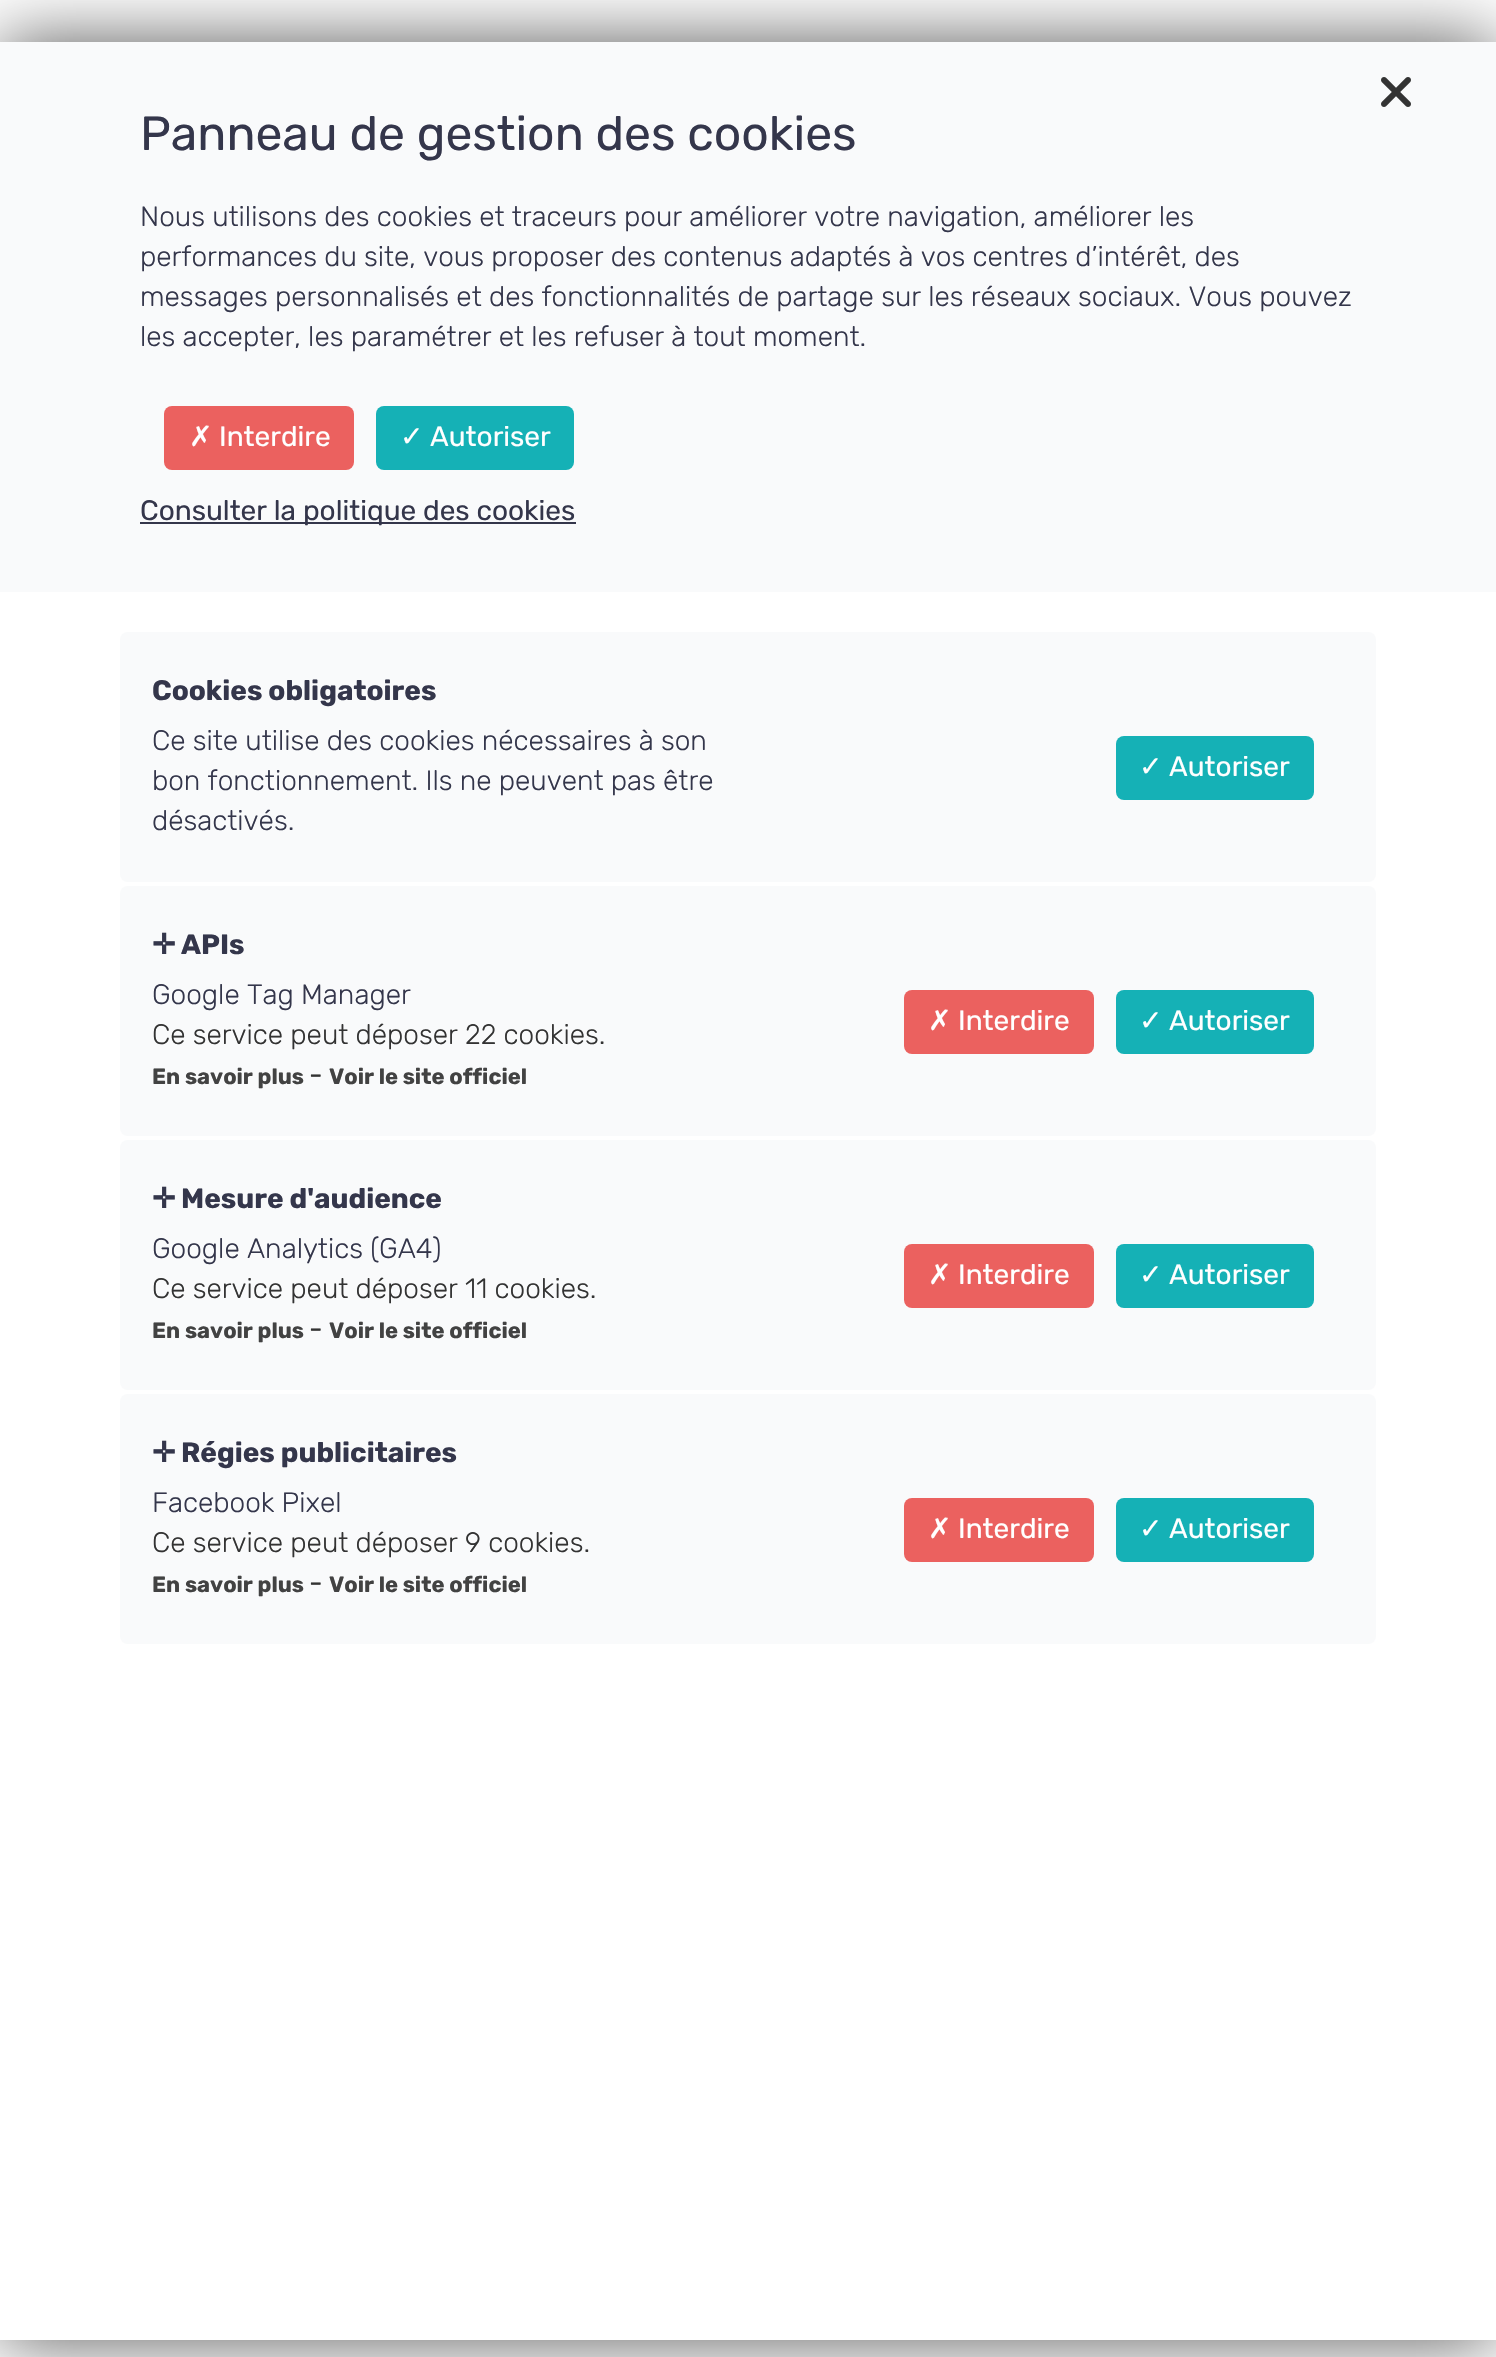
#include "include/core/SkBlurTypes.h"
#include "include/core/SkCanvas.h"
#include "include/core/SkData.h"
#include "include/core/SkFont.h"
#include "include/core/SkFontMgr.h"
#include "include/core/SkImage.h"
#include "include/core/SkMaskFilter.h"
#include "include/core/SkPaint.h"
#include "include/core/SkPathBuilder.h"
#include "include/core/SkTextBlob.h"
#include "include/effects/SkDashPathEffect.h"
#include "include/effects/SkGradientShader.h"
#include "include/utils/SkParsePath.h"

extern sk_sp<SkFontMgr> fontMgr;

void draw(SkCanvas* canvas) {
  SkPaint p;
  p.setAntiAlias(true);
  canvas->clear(SK_ColorWHITE);
  canvas->save();
  canvas->clipPath(SkPathBuilder(SkPathFillType::kEvenOdd).moveTo(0, 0).lineTo(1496, 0).lineTo(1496, 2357).lineTo(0, 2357).close().moveTo(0, 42).lineTo(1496, 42).lineTo(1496, 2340).lineTo(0, 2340).close().detach(), true);
  p.setColor(SkColorSetRGB(87, 87, 87));
  p.setMaskFilter(SkMaskFilter::MakeBlur(kNormal_SkBlurStyle, 35));
  canvas->drawRect(SkRect::MakeLTRB(0, 42, 1496, 2340), p);
  p.setMaskFilter(nullptr);
  canvas->restore();
  p.setColor(SkColorSetRGB(249, 250, 251));
  canvas->drawRect(SkRect::MakeLTRB(0, 42, 1496, 592), p);
  canvas->drawImageRect(SkImages::DeferredFromEncodedData(SkData::MakeFromFileName("images/1.png")), SkRect::MakeLTRB(1381, 77, 1411, 107), SkSamplingOptions());
  p.setColor(SkColorSetRGB(235, 97, 95));
  canvas->drawRoundRect(SkRect::MakeLTRB(164, 406, 354, 470), 8, 8, p);
  p.setColor(SkColorSetRGB(21, 177, 182));
  canvas->drawRoundRect(SkRect::MakeLTRB(376, 406, 574, 470), 8, 8, p);
  p.setColor(SkColorSetRGB(52, 54, 75));
  canvas->drawRect(SkRect::MakeLTRB(140, 522, 576, 524), p);
  p.setColor(SkColorSetRGB(249, 250, 251));
  canvas->drawRoundRect(SkRect::MakeLTRB(120, 632, 1376, 882), 8, 8, p);
  p.setColor(SkColorSetRGB(21, 177, 182));
  canvas->drawRoundRect(SkRect::MakeLTRB(1116, 736, 1314, 800), 8, 8, p);
  p.setColor(SkColorSetRGB(249, 250, 251));
  canvas->drawRoundRect(SkRect::MakeLTRB(120, 886, 1376, 1136), 8, 8, p);
  p.setColor(SkColorSetRGB(235, 97, 95));
  canvas->drawRoundRect(SkRect::MakeLTRB(904, 990, 1094, 1054), 8, 8, p);
  p.setColor(SkColorSetRGB(21, 177, 182));
  canvas->drawRoundRect(SkRect::MakeLTRB(1116, 990, 1314, 1054), 8, 8, p);
  p.setColor(SkColorSetRGB(249, 250, 251));
  canvas->drawRoundRect(SkRect::MakeLTRB(120, 1140, 1376, 1390), 8, 8, p);
  p.setColor(SkColorSetRGB(235, 97, 95));
  canvas->drawRoundRect(SkRect::MakeLTRB(904, 1244, 1094, 1308), 8, 8, p);
  p.setColor(SkColorSetRGB(21, 177, 182));
  canvas->drawRoundRect(SkRect::MakeLTRB(1116, 1244, 1314, 1308), 8, 8, p);
  p.setColor(SkColorSetRGB(249, 250, 251));
  canvas->drawRoundRect(SkRect::MakeLTRB(120, 1394, 1376, 1644), 8, 8, p);
  p.setColor(SkColorSetRGB(235, 97, 95));
  canvas->drawRoundRect(SkRect::MakeLTRB(904, 1498, 1094, 1562), 8, 8, p);
  p.setColor(SkColorSetRGB(21, 177, 182));
  canvas->drawRoundRect(SkRect::MakeLTRB(1116, 1498, 1314, 1562), 8, 8, p);
  SkFont font1(fontMgr->matchFamilyStyle("Rubik", SkFontStyle::Normal()), 48);
  font1.setSubpixel(true);
  p.setColor(SkColorSetRGB(52, 54, 75));
  canvas->drawString("Panneau de gestion des cookies", 140, 150, font1, p);
  SkFont font2(fontMgr->matchFamilyStyle("Rubik", SkFontStyle(300, SkFontStyle::kNormal_Width, SkFontStyle::kUpright_Slant)), 28);
  font2.setSubpixel(true);
  canvas->drawString("Nous utilisons des cookies et traceurs pour améliorer votre navigation, améliorer les", 140, 226, font2, p);
  canvas->drawString("performances du site, vous proposer des contenus adaptés à vos centres d’intérêt, des", 140, 266, font2, p);
  canvas->drawString("messages personnalisés et des fonctionnalités de partage sur les réseaux sociaux. Vous pouvez", 140, 306, font2, p);
  canvas->drawString("les accepter, les paramétrer et les refuser à tout moment.", 140, 346, font2, p);
  SkFont font3(fontMgr->matchFamilyStyle("DejaVu Sans", SkFontStyle::Normal()), 28);
  font3.setSubpixel(true);
  p.setColor(SK_ColorWHITE);
  canvas->drawString("✗", 189, 446, font3, p);
  SkFont font4(fontMgr->matchFamilyStyle("Rubik", SkFontStyle::Normal()), 28);
  font4.setSubpixel(true);
  canvas->drawString("Interdire", 219, 446, font4, p);
  canvas->drawString("✓", 400, 446, font3, p);
  canvas->drawString("Autoriser", 430, 446, font4, p);
  p.setColor(SkColorSetRGB(52, 54, 75));
  canvas->drawString("Consulter la politique des cookies", 140, 520, font4, p);
  SkFont font5(fontMgr->matchFamilyStyle("Rubik", SkFontStyle::Bold()), 28);
  font5.setSubpixel(true);
  canvas->drawString("Cookies obligatoires", 152, 700, font5, p);
  canvas->drawString("Ce site utilise des cookies nécessaires à son", 152, 750, font2, p);
  canvas->drawString("bon fonctionnement. Ils ne peuvent pas être", 152, 790, font2, p);
  canvas->drawString("désactivés.", 152, 830, font2, p);
  p.setColor(SK_ColorWHITE);
  canvas->drawString("✓", 1139, 776, font3, p);
  canvas->drawString("Autoriser", 1169, 776, font4, p);
  SkFont font6(fontMgr->matchFamilyStyle("DejaVu Sans", SkFontStyle::Bold()), 28);
  font6.setSubpixel(true);
  p.setColor(SkColorSetRGB(52, 54, 75));
  canvas->drawString("✛", 152, 954, font6, p);
  canvas->drawString("APIs", 181, 954, font5, p);
  canvas->drawString("Google Tag Manager", 152, 1004, font2, p);
  p.setColor(SkColorSetRGB(51, 51, 51));
  canvas->drawString("Ce service peut déposer 22 cookies.", 152, 1044, font2, p);
  SkFont font7(fontMgr->matchFamilyStyle("Rubik", SkFontStyle::Bold()), 22);
  font7.setSubpixel(true);
  p.setColor(SkColorSetRGB(66, 66, 66));
  canvas->drawString("En savoir plus", 152, 1084, font7, p);
  p.setColor(SkColorSetRGB(51, 51, 51));
  canvas->drawString("-", 309, 1084, font4, p);
  p.setColor(SkColorSetRGB(66, 66, 66));
  canvas->drawString("Voir le site officiel", 329, 1084, font7, p);
  p.setColor(SK_ColorWHITE);
  canvas->drawString("✗", 928, 1030, font3, p);
  canvas->drawString("Interdire", 958, 1030, font4, p);
  canvas->drawString("✓", 1139, 1030, font3, p);
  canvas->drawString("Autoriser", 1169, 1030, font4, p);
  p.setColor(SkColorSetRGB(52, 54, 75));
  canvas->drawString("✛", 152, 1208, font6, p);
  canvas->drawString("Mesure d'audience", 181, 1208, font5, p);
  canvas->drawString("Google Analytics (GA4)", 152, 1258, font2, p);
  p.setColor(SkColorSetRGB(51, 51, 51));
  canvas->drawString("Ce service peut déposer 11 cookies.", 152, 1298, font2, p);
  p.setColor(SkColorSetRGB(66, 66, 66));
  canvas->drawString("En savoir plus", 152, 1338, font7, p);
  p.setColor(SkColorSetRGB(51, 51, 51));
  canvas->drawString("-", 309, 1338, font4, p);
  p.setColor(SkColorSetRGB(66, 66, 66));
  canvas->drawString("Voir le site officiel", 329, 1338, font7, p);
  p.setColor(SK_ColorWHITE);
  canvas->drawString("✗", 928, 1284, font3, p);
  canvas->drawString("Interdire", 958, 1284, font4, p);
  canvas->drawString("✓", 1139, 1284, font3, p);
  canvas->drawString("Autoriser", 1169, 1284, font4, p);
  p.setColor(SkColorSetRGB(52, 54, 75));
  canvas->drawString("✛", 152, 1462, font6, p);
  canvas->drawString("Régies publicitaires", 181, 1462, font5, p);
  canvas->drawString("Facebook Pixel", 152, 1512, font2, p);
  p.setColor(SkColorSetRGB(51, 51, 51));
  canvas->drawString("Ce service peut déposer 9 cookies.", 152, 1552, font2, p);
  p.setColor(SkColorSetRGB(66, 66, 66));
  canvas->drawString("En savoir plus", 152, 1592, font7, p);
  p.setColor(SkColorSetRGB(51, 51, 51));
  canvas->drawString("-", 309, 1592, font4, p);
  p.setColor(SkColorSetRGB(66, 66, 66));
  canvas->drawString("Voir le site officiel", 329, 1592, font7, p);
  p.setColor(SK_ColorWHITE);
  canvas->drawString("✗", 928, 1538, font3, p);
  canvas->drawString("Interdire", 958, 1538, font4, p);
  canvas->drawString("✓", 1139, 1538, font3, p);
  canvas->drawString("Autoriser", 1169, 1538, font4, p);
}
